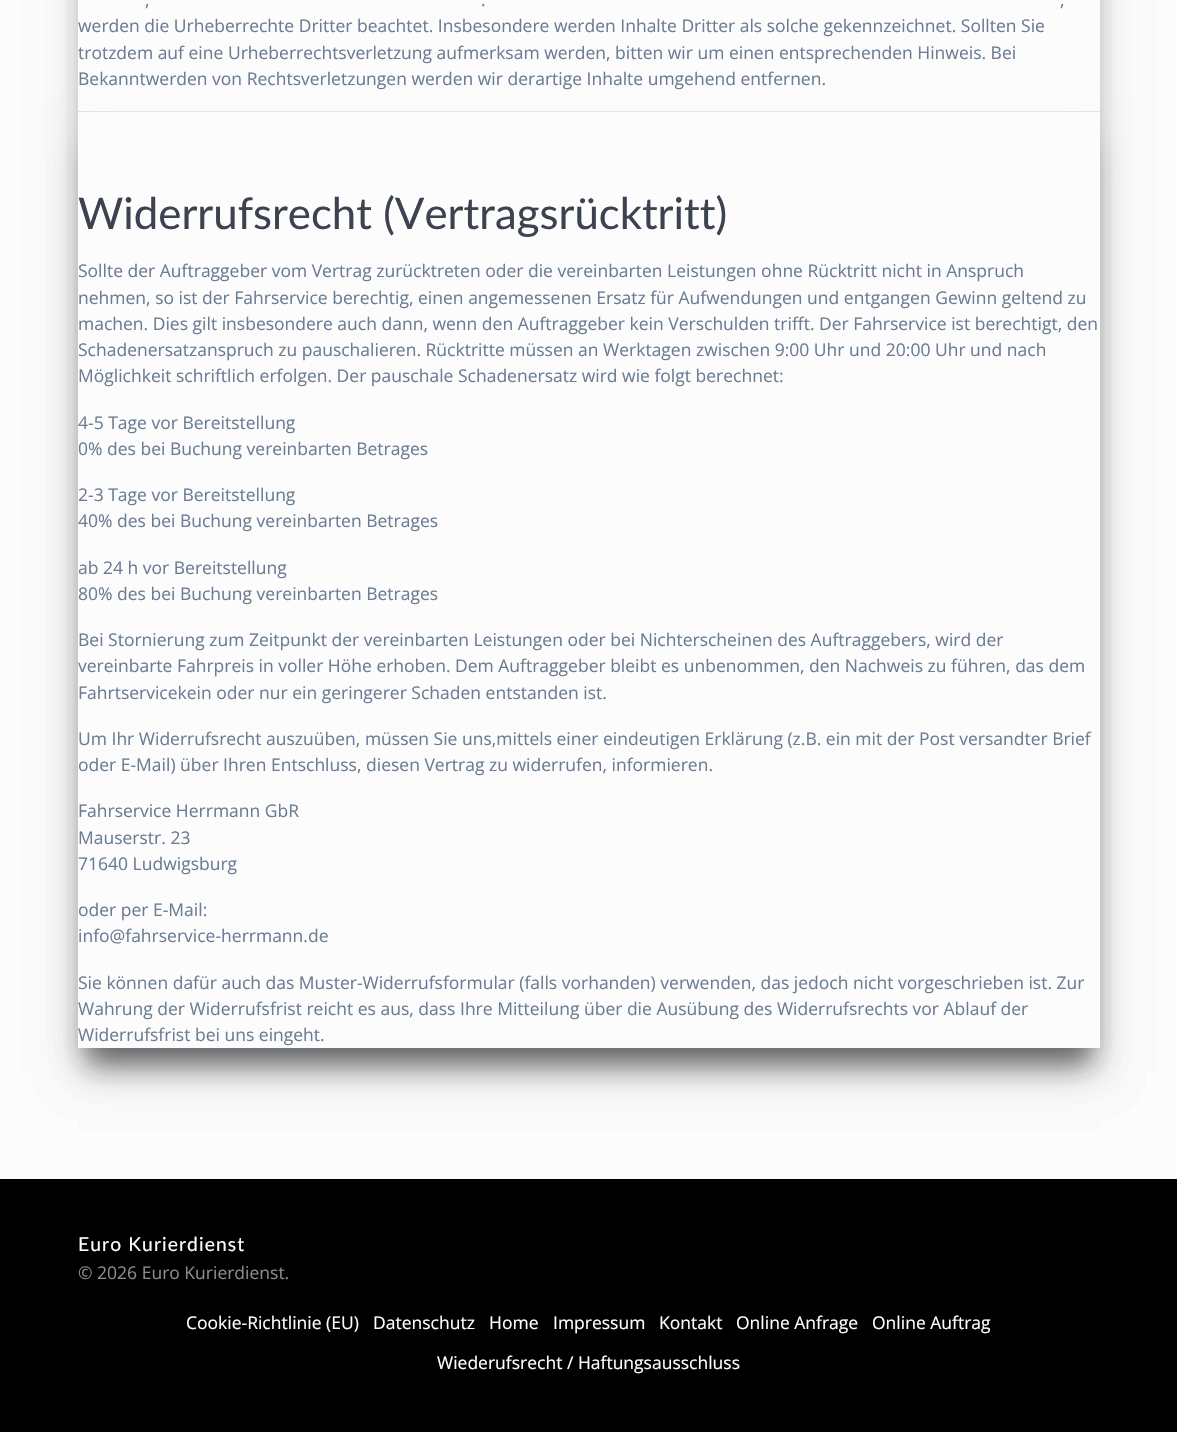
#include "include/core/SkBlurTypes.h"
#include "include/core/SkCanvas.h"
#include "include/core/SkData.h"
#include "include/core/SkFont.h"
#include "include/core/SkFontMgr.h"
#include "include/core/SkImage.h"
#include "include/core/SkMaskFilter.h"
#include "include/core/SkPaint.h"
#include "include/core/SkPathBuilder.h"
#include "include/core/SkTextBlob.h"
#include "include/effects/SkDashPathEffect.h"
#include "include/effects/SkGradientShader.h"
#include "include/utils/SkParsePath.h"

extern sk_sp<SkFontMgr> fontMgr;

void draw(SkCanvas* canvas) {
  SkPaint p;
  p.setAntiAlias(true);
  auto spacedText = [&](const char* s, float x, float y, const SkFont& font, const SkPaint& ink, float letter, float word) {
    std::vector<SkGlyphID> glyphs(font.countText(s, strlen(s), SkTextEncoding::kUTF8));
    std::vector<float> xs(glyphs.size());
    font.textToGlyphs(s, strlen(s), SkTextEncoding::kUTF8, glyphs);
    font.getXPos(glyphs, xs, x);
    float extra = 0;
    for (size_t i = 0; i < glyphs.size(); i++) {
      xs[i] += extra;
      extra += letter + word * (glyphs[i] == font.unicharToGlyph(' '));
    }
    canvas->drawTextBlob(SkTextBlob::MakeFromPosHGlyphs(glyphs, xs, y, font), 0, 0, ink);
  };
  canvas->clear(SkColorSetRGB(252, 252, 252));
  p.setColor(SkColorSetARGB(20, 0, 0, 0));
  p.setMaskFilter(SkMaskFilter::MakeBlur(kNormal_SkBlurStyle, 19));
  canvas->drawRect(SkRect::MakeLTRB(78, -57, 1100, 1073), p);
  p.setMaskFilter(nullptr);
  p.setColor(SkColorSetARGB(77, 49, 52, 57));
  p.setMaskFilter(SkMaskFilter::MakeBlur(kNormal_SkBlurStyle, 12.5f));
  canvas->drawRect(SkRect::MakeLTRB(90, -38, 1088, 1060), p);
  p.setMaskFilter(nullptr);
  p.setColor(SkColorSetARGB(20, 0, 0, 0));
  p.setMaskFilter(SkMaskFilter::MakeBlur(kNormal_SkBlurStyle, 19));
  canvas->drawRect(SkRect::MakeLTRB(78, -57, 1100, 1073), p);
  p.setMaskFilter(nullptr);
  p.setColor(SkColorSetARGB(77, 49, 52, 57));
  p.setMaskFilter(SkMaskFilter::MakeBlur(kNormal_SkBlurStyle, 12.5f));
  canvas->drawRect(SkRect::MakeLTRB(90, -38, 1088, 1060), p);
  p.setMaskFilter(nullptr);
  p.setColor(SkColorSetRGB(252, 252, 252));
  canvas->drawRect(SkRect::MakeLTRB(78, 0, 1100, 113), p);
  p.setColor(SkColorSetARGB(20, 0, 0, 0));
  p.setMaskFilter(SkMaskFilter::MakeBlur(kNormal_SkBlurStyle, 19));
  canvas->drawRect(SkRect::MakeLTRB(78, 138, 1100, 1073), p);
  p.setMaskFilter(nullptr);
  p.setColor(SkColorSetARGB(77, 49, 52, 57));
  p.setMaskFilter(SkMaskFilter::MakeBlur(kNormal_SkBlurStyle, 12.5f));
  canvas->drawRect(SkRect::MakeLTRB(90, 150, 1088, 1060), p);
  p.setMaskFilter(nullptr);
  p.setColor(SkColorSetRGB(225, 225, 225));
  canvas->drawRect(SkRect::MakeLTRB(78, 111, 1100, 112), p);
  p.setColor(SkColorSetRGB(252, 252, 252));
  canvas->drawRect(SkRect::MakeLTRB(78, 113, 1100, 1048), p);
  p.setColor(SK_ColorBLACK);
  canvas->drawRect(SkRect::MakeLTRB(0, 1179, 1177, 1432), p);
  SkFont font1(fontMgr->matchFamilyStyle("Open Sans", SkFontStyle::Normal()), 17.5f);
  font1.setSubpixel(true);
  p.setColor(SkColorSetRGB(107, 124, 147));
  canvas->drawString(",", 145, 6, font1, p);
  canvas->drawString(".", 481, 6, font1, p);
  canvas->drawString(",", 1060, 6, font1, p);
  canvas->drawString("werden die Urheberrechte Dritter beachtet. Insbesondere werden Inhalte Dritter als solche gekennzeichnet. Sollten Sie", 78, 32, font1, p);
  canvas->drawString("trotzdem auf eine Urheberrechtsverletzung aufmerksam werden, bitten wir um einen entsprechenden Hinweis. Bei", 78, 59, font1, p);
  canvas->drawString("Bekanntwerden von Rechtsverletzungen werden wir derartige Inhalte umgehend entfernen.", 78, 85, font1, p);
  SkFont font2(fontMgr->matchFamilyStyle("Lato", SkFontStyle::Normal()), 43.75f);
  font2.setSubpixel(true);
  p.setColor(SkColorSetRGB(60, 66, 79));
  canvas->drawString("Widerrufsrecht (Vertragsrücktritt)", 78, 229, font2, p);
  p.setColor(SkColorSetRGB(107, 124, 147));
  canvas->drawString("Sollte der Auftraggeber vom Vertrag zurücktreten oder die vereinbarten Leistungen ohne Rücktritt nicht in Anspruch", 78, 277, font1, p);
  canvas->drawString("nehmen, so ist der Fahrservice berechtig, einen angemessenen Ersatz für Aufwendungen und entgangen Gewinn geltend zu", 78, 304, font1, p);
  canvas->drawString("machen. Dies gilt insbesondere auch dann, wenn den Auftraggeber kein Verschulden trifft. Der Fahrservice ist berechtigt, den", 78, 330, font1, p);
  canvas->drawString("Schadenersatzanspruch zu pauschalieren. Rücktritte müssen an Werktagen zwischen 9:00 Uhr und 20:00 Uhr und nach", 78, 356, font1, p);
  canvas->drawString("Möglichkeit schriftlich erfolgen. Der pauschale Schadenersatz wird wie folgt berechnet:", 78, 382, font1, p);
  canvas->drawString("4-5 Tage vor Bereitstellung", 78, 429, font1, p);
  canvas->drawString("0% des bei Buchung vereinbarten Betrages", 78, 455, font1, p);
  canvas->drawString("2-3 Tage vor Bereitstellung", 78, 501, font1, p);
  canvas->drawString("40% des bei Buchung vereinbarten Betrages", 78, 527, font1, p);
  canvas->drawString("ab 24 h vor Bereitstellung", 78, 574, font1, p);
  canvas->drawString("80% des bei Buchung vereinbarten Betrages", 78, 600, font1, p);
  canvas->drawString("Bei Stornierung zum Zeitpunkt der vereinbarten Leistungen oder bei Nichterscheinen des Auftraggebers, wird der", 78, 646, font1, p);
  canvas->drawString("vereinbarte Fahrpreis in voller Höhe erhoben. Dem Auftraggeber bleibt es unbenommen, den Nachweis zu führen, das dem", 78, 672, font1, p);
  canvas->drawString("Fahrtservicekein oder nur ein geringerer Schaden entstanden ist.", 78, 699, font1, p);
  canvas->drawString("Um Ihr Widerrufsrecht auszuüben, müssen Sie uns,mittels einer eindeutigen Erklärung (z.B. ein mit der Post versandter Brief", 78, 745, font1, p);
  canvas->drawString("oder E-Mail) über Ihren Entschluss, diesen Vertrag zu widerrufen, informieren.", 78, 771, font1, p);
  canvas->drawString("Fahrservice Herrmann GbR", 78, 817, font1, p);
  canvas->drawString("Mauserstr. 23", 78, 844, font1, p);
  canvas->drawString("71640 Ludwigsburg", 78, 870, font1, p);
  canvas->drawString("oder per E-Mail:", 78, 916, font1, p);
  canvas->drawString("info@fahrservice-herrmann.de", 78, 942, font1, p);
  canvas->drawString("Sie können dafür auch das Muster-Widerrufsformular (falls vorhanden) verwenden, das jedoch nicht vorgeschrieben ist. Zur", 78, 989, font1, p);
  canvas->drawString("Wahrung der Widerrufsfrist reicht es aus, dass Ihre Mitteilung über die Ausübung des Widerrufsrechts vor Ablauf der", 78, 1015, font1, p);
  canvas->drawString("Widerrufsfrist bei uns eingeht.", 78, 1041, font1, p);
  SkFont font3(fontMgr->matchFamilyStyle("Lato", SkFontStyle::Normal()), 19.25f);
  font3.setSubpixel(true);
  p.setColor(SK_ColorWHITE);
  spacedText("Euro Kurierdienst", 78, 1251, font3, p, 1.1f, 0);
  p.setColor(SkColorSetRGB(140, 140, 140));
  canvas->drawString("© 2026 Euro Kurierdienst.", 78, 1279, font1, p);
  p.setColor(SK_ColorWHITE);
  canvas->drawString("Cookie-Richtlinie (EU)", 186, 1329, font1, p);
  canvas->drawString("Datenschutz", 373, 1329, font1, p);
  canvas->drawString("Home", 489, 1329, font1, p);
  canvas->drawString("Impressum", 553, 1329, font1, p);
  canvas->drawString("Kontakt", 659, 1329, font1, p);
  canvas->drawString("Online Anfrage", 736, 1329, font1, p);
  canvas->drawString("Online Auftrag", 872, 1329, font1, p);
  canvas->drawString("Wiederufsrecht / Haftungsausschluss", 437, 1369, font1, p);
}
